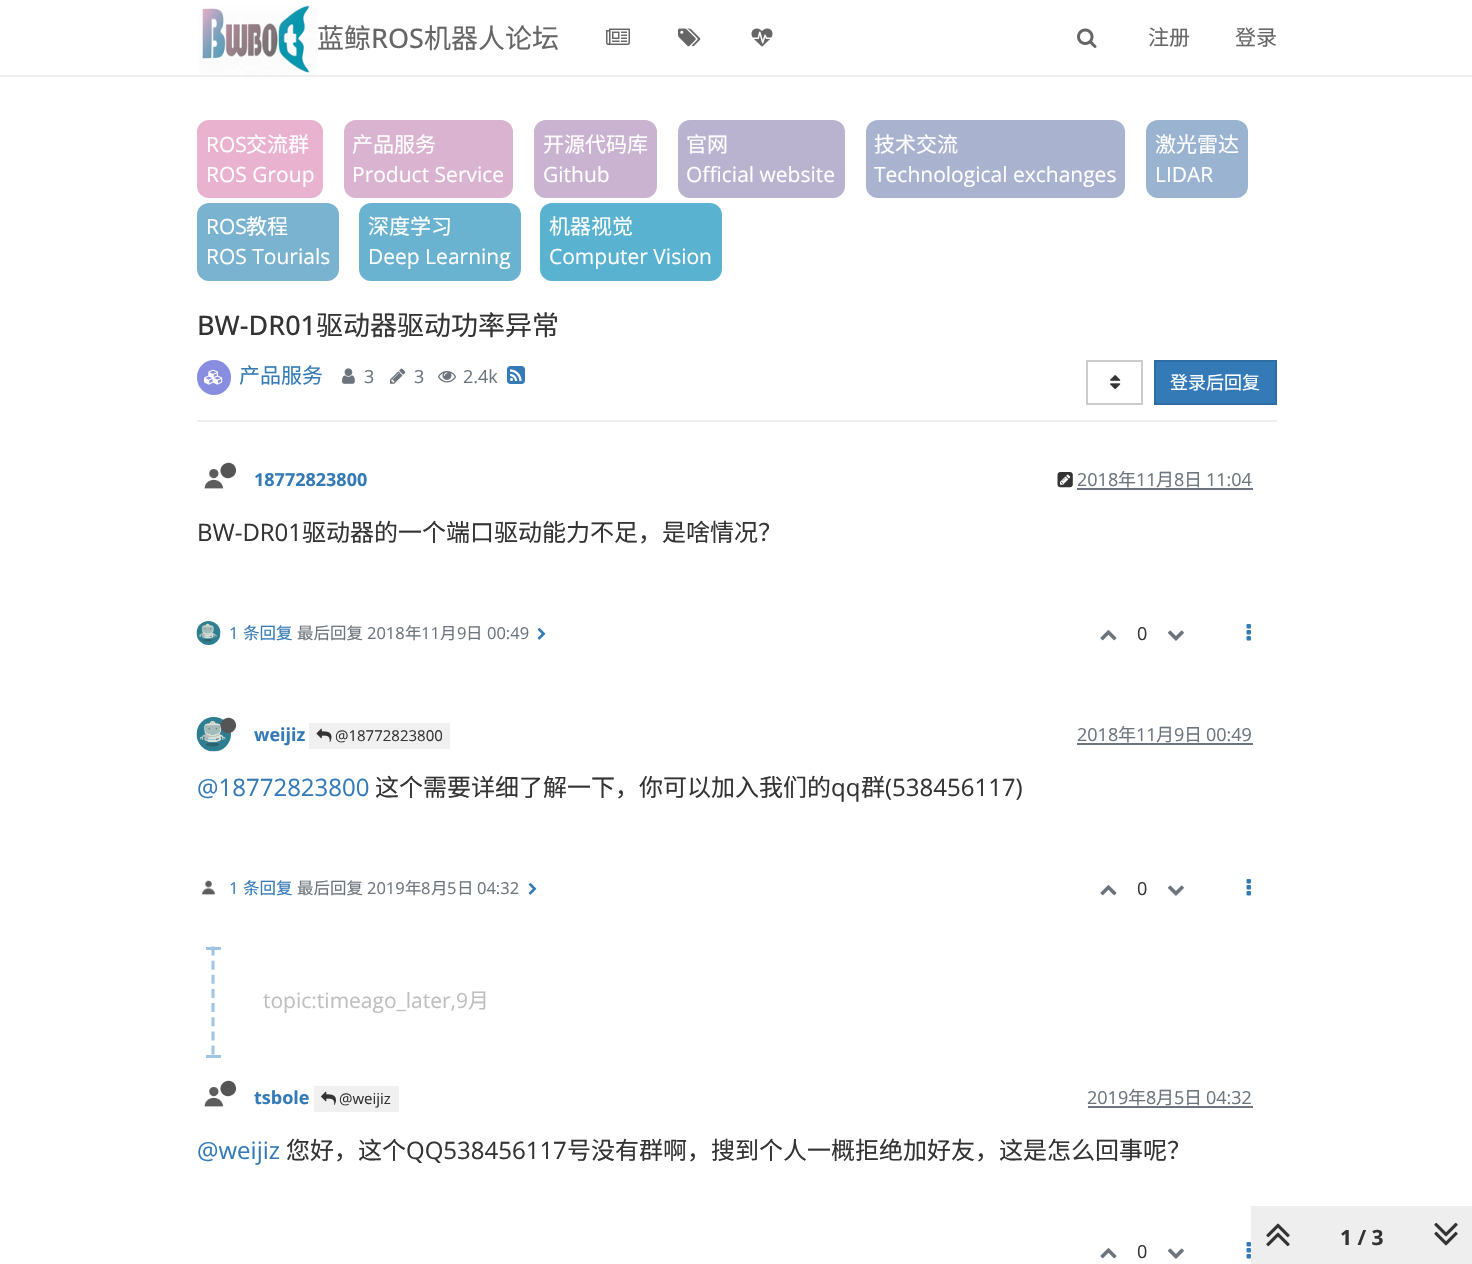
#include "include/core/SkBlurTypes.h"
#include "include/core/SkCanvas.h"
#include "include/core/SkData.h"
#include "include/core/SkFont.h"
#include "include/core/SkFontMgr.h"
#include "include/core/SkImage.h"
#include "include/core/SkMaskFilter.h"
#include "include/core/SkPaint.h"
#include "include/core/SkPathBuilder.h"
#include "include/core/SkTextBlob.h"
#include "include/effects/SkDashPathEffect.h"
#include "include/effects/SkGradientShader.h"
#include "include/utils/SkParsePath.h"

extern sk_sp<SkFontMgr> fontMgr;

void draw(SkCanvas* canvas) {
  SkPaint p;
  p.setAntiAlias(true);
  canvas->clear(SK_ColorWHITE);
  p.setColor(SkColorSetRGB(238, 238, 238));
  canvas->drawRect(SkRect::MakeLTRB(0, 75, 1472, 77), p);
  canvas->drawImageRect(SkImages::DeferredFromEncodedData(SkData::MakeFromFileName("images/1.png")), SkRect::MakeLTRB(199, 5, 318, 75), SkSamplingOptions());
  canvas->drawImageRect(SkImages::DeferredFromEncodedData(SkData::MakeFromFileName("images/2.png")), SkRect::MakeLTRB(606, 28, 630, 45), SkSamplingOptions());
  canvas->drawImageRect(SkImages::DeferredFromEncodedData(SkData::MakeFromFileName("images/3.png")), SkRect::MakeLTRB(678, 28, 701, 47), SkSamplingOptions());
  canvas->drawImageRect(SkImages::DeferredFromEncodedData(SkData::MakeFromFileName("images/4.png")), SkRect::MakeLTRB(751, 28, 773, 47), SkSamplingOptions());
  canvas->drawImageRect(SkImages::DeferredFromEncodedData(SkData::MakeFromFileName("images/5.png")), SkRect::MakeLTRB(1077, 28, 1097, 48), SkSamplingOptions());
  p.setColor(SkColorSetRGB(233, 179, 208));
  canvas->drawRoundRect(SkRect::MakeLTRB(197, 120, 323, 198), 12, 12, p);
  p.setColor(SkColorSetRGB(217, 179, 208));
  canvas->drawRoundRect(SkRect::MakeLTRB(344, 120, 513, 198), 12, 12, p);
  p.setColor(SkColorSetRGB(201, 179, 208));
  canvas->drawRoundRect(SkRect::MakeLTRB(534, 120, 657, 198), 12, 12, p);
  p.setColor(SkColorSetRGB(185, 179, 208));
  canvas->drawRoundRect(SkRect::MakeLTRB(678, 120, 845, 198), 12, 12, p);
  p.setColor(SkColorSetRGB(169, 179, 208));
  canvas->drawRoundRect(SkRect::MakeLTRB(866, 120, 1125, 198), 12, 12, p);
  p.setColor(SkColorSetRGB(153, 179, 208));
  canvas->drawRoundRect(SkRect::MakeLTRB(1146, 120, 1248, 198), 12, 12, p);
  p.setColor(SkColorSetRGB(121, 179, 208));
  canvas->drawRoundRect(SkRect::MakeLTRB(197, 203, 339, 281), 12, 12, p);
  p.setColor(SkColorSetRGB(105, 179, 208));
  canvas->drawRoundRect(SkRect::MakeLTRB(359, 203, 521, 281), 12, 12, p);
  p.setColor(SkColorSetRGB(89, 179, 208));
  canvas->drawRoundRect(SkRect::MakeLTRB(540, 203, 722, 281), 12, 12, p);
  p.setColor(SkColorSetRGB(238, 238, 238));
  canvas->drawRect(SkRect::MakeLTRB(197, 420, 1277, 422), p);
  p.setColor(SkColorSetRGB(137, 141, 224));
  canvas->drawRoundRect(SkRect::MakeLTRB(197, 360, 231, 395), 17, 17, p);
  canvas->drawImageRect(SkImages::DeferredFromEncodedData(SkData::MakeFromFileName("images/6.png")), SkRect::MakeLTRB(204, 369, 223, 385), SkSamplingOptions());
  canvas->drawImageRect(SkImages::DeferredFromEncodedData(SkData::MakeFromFileName("images/7.png")), SkRect::MakeLTRB(342, 368, 355, 384), SkSamplingOptions());
  canvas->drawImageRect(SkImages::DeferredFromEncodedData(SkData::MakeFromFileName("images/8.png")), SkRect::MakeLTRB(390, 368, 406, 384), SkSamplingOptions());
  canvas->drawImageRect(SkImages::DeferredFromEncodedData(SkData::MakeFromFileName("images/9.png")), SkRect::MakeLTRB(438, 370, 456, 383), SkSamplingOptions());
  canvas->drawImageRect(SkImages::DeferredFromEncodedData(SkData::MakeFromFileName("images/10.png")), SkRect::MakeLTRB(507, 366, 525, 384), SkSamplingOptions());
  p.setStyle(SkPaint::kStroke_Style);
  p.setStrokeWidth(2);
  p.setColor(SkColorSetRGB(204, 204, 204));
  canvas->drawRect(SkRect::MakeLTRB(1087, 361, 1142, 404), p);
  canvas->drawImageRect(SkImages::DeferredFromEncodedData(SkData::MakeFromFileName("images/11.png")), SkRect::MakeLTRB(1110, 375, 1121, 390), SkSamplingOptions());
  p.setStyle(SkPaint::kFill_Style);
  p.setColor(SkColorSetRGB(51, 122, 183));
  canvas->drawRect(SkRect::MakeLTRB(1155, 361, 1276, 404), p);
  p.setStyle(SkPaint::kStroke_Style);
  p.setColor(SkColorSetRGB(46, 109, 164));
  canvas->drawRect(SkRect::MakeLTRB(1155, 361, 1276, 404), p);
  canvas->drawImageRect(SkImages::DeferredFromEncodedData(SkData::MakeFromFileName("images/12.png")), SkRect::MakeLTRB(204, 469, 224, 489), SkSamplingOptions());
  p.setStyle(SkPaint::kFill_Style);
  p.setColor(SkColorSetRGB(85, 85, 85));
  canvas->drawPath(SkPathBuilder().moveTo(235, 466.5f).cubicTo(240, 475.5f, 226.5f, 483, 221.5f, 474.5f).cubicTo(216.5f, 465.5f, 230, 458, 235, 466.5f).close().detach(), p);
  canvas->drawImageRect(SkImages::DeferredFromEncodedData(SkData::MakeFromFileName("images/13.png")), SkRect::MakeLTRB(1057, 472, 1073, 488), SkSamplingOptions());
  p.setColor(SkColorSetRGB(108, 117, 125));
  canvas->drawRect(SkRect::MakeLTRB(1077, 488, 1253, 490), p);
  canvas->drawImageRect(SkImages::DeferredFromEncodedData(SkData::MakeFromFileName("images/14.png")), SkRect::MakeLTRB(196, 621, 221, 645), SkSamplingOptions());
  canvas->drawImageRect(SkImages::DeferredFromEncodedData(SkData::MakeFromFileName("images/15.png")), SkRect::MakeLTRB(537, 627, 546, 640), SkSamplingOptions());
  canvas->drawImageRect(SkImages::DeferredFromEncodedData(SkData::MakeFromFileName("images/16.png")), SkRect::MakeLTRB(1100, 630, 1117, 641), SkSamplingOptions());
  canvas->drawImageRect(SkImages::DeferredFromEncodedData(SkData::MakeFromFileName("images/17.png")), SkRect::MakeLTRB(1168, 630, 1184, 641), SkSamplingOptions());
  canvas->drawImageRect(SkImages::DeferredFromEncodedData(SkData::MakeFromFileName("images/18.png")), SkRect::MakeLTRB(1246, 624, 1251, 641), SkSamplingOptions());
  canvas->drawImageRect(SkImages::DeferredFromEncodedData(SkData::MakeFromFileName("images/19.png")), SkRect::MakeLTRB(196, 717, 231, 752), SkSamplingOptions());
  p.setColor(SkColorSetRGB(85, 85, 85));
  canvas->drawPath(SkPathBuilder().moveTo(235, 721.5f).cubicTo(240, 730.5f, 226.5f, 738, 221.5f, 729.5f).cubicTo(216.5f, 720.5f, 230, 713, 235, 721.5f).close().detach(), p);
  p.setColor(SkColorSetRGB(240, 240, 240));
  canvas->drawRect(SkRect::MakeLTRB(309, 723, 450, 749), p);
  canvas->drawImageRect(SkImages::DeferredFromEncodedData(SkData::MakeFromFileName("images/20.png")), SkRect::MakeLTRB(316, 728, 332, 742), SkSamplingOptions());
  p.setColor(SkColorSetRGB(108, 117, 125));
  canvas->drawRect(SkRect::MakeLTRB(1077, 743, 1253, 745), p);
  canvas->drawImageRect(SkImages::DeferredFromEncodedData(SkData::MakeFromFileName("images/21.png")), SkRect::MakeLTRB(201, 880, 216, 896), SkSamplingOptions());
  canvas->drawImageRect(SkImages::DeferredFromEncodedData(SkData::MakeFromFileName("images/15.png")), SkRect::MakeLTRB(528, 882, 537, 895), SkSamplingOptions());
  canvas->drawImageRect(SkImages::DeferredFromEncodedData(SkData::MakeFromFileName("images/16.png")), SkRect::MakeLTRB(1100, 885, 1117, 896), SkSamplingOptions());
  canvas->drawImageRect(SkImages::DeferredFromEncodedData(SkData::MakeFromFileName("images/17.png")), SkRect::MakeLTRB(1168, 885, 1184, 896), SkSamplingOptions());
  canvas->drawImageRect(SkImages::DeferredFromEncodedData(SkData::MakeFromFileName("images/18.png")), SkRect::MakeLTRB(1246, 879, 1251, 896), SkSamplingOptions());
  p.setStyle(SkPaint::kStroke_Style);
  p.setStrokeWidth(3);
  p.setColor(SkColorSetRGB(160, 196, 228));
  p.setPathEffect(SkDashPathEffect::Make({{9, 5.15f}}, 0));
  canvas->drawPath(SkPathBuilder().moveTo(213, 946.5f).lineTo(213, 1054.5f).detach(), p);
  p.setPathEffect(nullptr);
  p.setStyle(SkPaint::kFill_Style);
  canvas->drawRect(SkRect::MakeLTRB(206, 947, 221, 950), p);
  canvas->drawRect(SkRect::MakeLTRB(206, 1055, 221, 1058), p);
  canvas->drawImageRect(SkImages::DeferredFromEncodedData(SkData::MakeFromFileName("images/12.png")), SkRect::MakeLTRB(204, 1087, 224, 1107), SkSamplingOptions());
  p.setColor(SkColorSetRGB(85, 85, 85));
  canvas->drawPath(SkPathBuilder().moveTo(235, 1084.5f).cubicTo(240, 1093.5f, 226.5f, 1101, 221.5f, 1092.5f).cubicTo(216.5f, 1083.5f, 230, 1076, 235, 1084.5f).close().detach(), p);
  p.setColor(SkColorSetRGB(240, 240, 240));
  canvas->drawRect(SkRect::MakeLTRB(314, 1086, 399, 1112), p);
  canvas->drawImageRect(SkImages::DeferredFromEncodedData(SkData::MakeFromFileName("images/22.png")), SkRect::MakeLTRB(321, 1091, 336, 1105), SkSamplingOptions());
  p.setColor(SkColorSetRGB(108, 117, 125));
  canvas->drawRect(SkRect::MakeLTRB(1088, 1106, 1253, 1108), p);
  canvas->drawImageRect(SkImages::DeferredFromEncodedData(SkData::MakeFromFileName("images/16.png")), SkRect::MakeLTRB(1100, 1248, 1117, 1259), SkSamplingOptions());
  canvas->drawImageRect(SkImages::DeferredFromEncodedData(SkData::MakeFromFileName("images/17.png")), SkRect::MakeLTRB(1168, 1248, 1184, 1259), SkSamplingOptions());
  canvas->drawImageRect(SkImages::DeferredFromEncodedData(SkData::MakeFromFileName("images/18.png")), SkRect::MakeLTRB(1246, 1242, 1251, 1259), SkSamplingOptions());
  p.setColor(SkColorSetRGB(238, 238, 238));
  canvas->drawRect(SkRect::MakeLTRB(1251, 1206, 1472, 1264), p);
  canvas->drawImageRect(SkImages::DeferredFromEncodedData(SkData::MakeFromFileName("images/23.png")), SkRect::MakeLTRB(1266, 1223, 1290, 1247), SkSamplingOptions());
  canvas->drawImageRect(SkImages::DeferredFromEncodedData(SkData::MakeFromFileName("images/24.png")), SkRect::MakeLTRB(1434, 1222, 1458, 1246), SkSamplingOptions());
  SkFont font1(fontMgr->matchFamilyStyle("Noto Sans CJK SC", SkFontStyle::Normal()), 27);
  font1.setSubpixel(true);
  p.setColor(SkColorSetRGB(102, 102, 102));
  canvas->drawString("蓝鲸", 317, 48, font1, p);
  SkFont font2(fontMgr->matchFamilyStyle("Open Sans", SkFontStyle(500, SkFontStyle::kNormal_Width, SkFontStyle::kUpright_Slant)), 27);
  font2.setSubpixel(true);
  canvas->drawString("ROS", 371, 48, font2, p);
  canvas->drawString("机器人论坛", 424, 48, font1, p);
  SkFont font3(fontMgr->matchFamilyStyle("Noto Sans CJK SC", SkFontStyle::Normal()), 21);
  font3.setSubpixel(true);
  canvas->drawString("注册", 1148, 45, font3, p);
  canvas->drawString("登录", 1235, 45, font3, p);
  SkFont font4(fontMgr->matchFamilyStyle("Open Sans", SkFontStyle::Normal()), 21);
  font4.setSubpixel(true);
  p.setColor(SK_ColorWHITE);
  canvas->drawString("ROS", 206, 152, font4, p);
  canvas->drawString("交流群", 246, 152, font3, p);
  canvas->drawString("ROS Group", 206, 182, font4, p);
  canvas->drawString("产品服务", 352, 152, font3, p);
  canvas->drawString("Product Service", 352, 182, font4, p);
  canvas->drawString("开源代码库", 543, 152, font3, p);
  canvas->drawString("Github", 543, 182, font4, p);
  canvas->drawString("官网", 686, 152, font3, p);
  canvas->drawString("Official website", 686, 182, font4, p);
  canvas->drawString("技术交流", 874, 152, font3, p);
  canvas->drawString("Technological exchanges", 874, 182, font4, p);
  canvas->drawString("激光雷达", 1155, 152, font3, p);
  canvas->drawString("LIDAR", 1155, 182, font4, p);
  canvas->drawString("ROS", 206, 234, font4, p);
  canvas->drawString("教程", 246, 234, font3, p);
  canvas->drawString("ROS Tourials", 206, 264, font4, p);
  canvas->drawString("深度学习", 368, 234, font3, p);
  canvas->drawString("Deep Learning", 368, 264, font4, p);
  canvas->drawString("机器视觉", 549, 234, font3, p);
  canvas->drawString("Computer Vision", 549, 264, font4, p);
  p.setColor(SkColorSetRGB(51, 51, 51));
  canvas->drawString("BW-DR01", 197, 335, font2, p);
  canvas->drawString("驱动器驱动功率异常", 316, 335, font1, p);
  p.setColor(SkColorSetRGB(51, 122, 183));
  canvas->drawString("产品服务", 239, 383, font3, p);
  SkFont font5(fontMgr->matchFamilyStyle("Open Sans", SkFontStyle::Normal()), 18);
  font5.setSubpixel(true);
  p.setColor(SkColorSetRGB(108, 117, 125));
  canvas->drawString("3", 364, 383, font5, p);
  canvas->drawString("3", 414, 383, font5, p);
  canvas->drawString("2.4k", 463, 383, font5, p);
  SkFont font6(fontMgr->matchFamilyStyle("Noto Sans CJK SC", SkFontStyle::Normal()), 18);
  font6.setSubpixel(true);
  p.setColor(SK_ColorWHITE);
  canvas->drawString("登录后回复", 1170, 389, font6, p);
  SkFont font7(fontMgr->matchFamilyStyle("Open Sans", SkFontStyle::Bold()), 18);
  font7.setSubpixel(true);
  p.setColor(SkColorSetRGB(51, 122, 183));
  canvas->drawString("18772823800", 254, 486, font7, p);
  p.setColor(SkColorSetRGB(108, 117, 125));
  canvas->drawString("2018", 1077, 486, font5, p);
  canvas->drawString("年", 1118, 486, font6, p);
  canvas->drawString("11", 1136, 486, font5, p);
  canvas->drawString("月", 1156, 486, font6, p);
  canvas->drawString("8", 1174, 486, font5, p);
  canvas->drawString("日", 1184, 486, font6, p);
  canvas->drawString("11:04", 1206, 486, font5, p);
  SkFont font8(fontMgr->matchFamilyStyle("Open Sans", SkFontStyle::Normal()), 24);
  font8.setSubpixel(true);
  p.setColor(SkColorSetRGB(51, 51, 51));
  canvas->drawString("BW-DR01", 197, 541, font8, p);
  SkFont font9(fontMgr->matchFamilyStyle("Noto Sans CJK SC", SkFontStyle::Normal()), 24);
  font9.setSubpixel(true);
  canvas->drawString("驱动器的一个端口驱动能力不足，是啥情况？", 302, 541, font9, p);
  SkFont font10(fontMgr->matchFamilyStyle("Open Sans", SkFontStyle::Normal()), 16.5f);
  font10.setSubpixel(true);
  p.setColor(SkColorSetRGB(51, 122, 183));
  canvas->drawString("1", 229, 639, font10, p);
  SkFont font11(fontMgr->matchFamilyStyle("Noto Sans CJK SC", SkFontStyle::Normal()), 16.5f);
  font11.setSubpixel(true);
  canvas->drawString("条回复", 243, 639, font11, p);
  p.setColor(SkColorSetRGB(108, 117, 125));
  canvas->drawString("最后回复", 297, 639, font11, p);
  canvas->drawString("2018", 367, 639, font10, p);
  canvas->drawString("年", 405, 639, font11, p);
  canvas->drawString("11", 421, 639, font10, p);
  canvas->drawString("月", 440, 639, font11, p);
  canvas->drawString("9", 457, 639, font10, p);
  canvas->drawString("日", 466, 639, font11, p);
  canvas->drawString("00:49", 487, 639, font10, p);
  p.setColor(SkColorSetRGB(51, 51, 51));
  canvas->drawString("0", 1137, 640, font5, p);
  p.setColor(SkColorSetRGB(51, 122, 183));
  canvas->drawString("weijiz", 254, 741, font7, p);
  SkFont font12(fontMgr->matchFamilyStyle("Open Sans", SkFontStyle::Normal()), 15);
  font12.setSubpixel(true);
  p.setColor(SkColorSetRGB(51, 51, 51));
  canvas->drawString("@18772823800", 335, 741, font12, p);
  p.setColor(SkColorSetRGB(108, 117, 125));
  canvas->drawString("2018", 1077, 741, font5, p);
  canvas->drawString("年", 1118, 741, font6, p);
  canvas->drawString("11", 1136, 741, font5, p);
  canvas->drawString("月", 1156, 741, font6, p);
  canvas->drawString("9", 1174, 741, font5, p);
  canvas->drawString("日", 1184, 741, font6, p);
  canvas->drawString("00:49", 1206, 741, font5, p);
  p.setColor(SkColorSetRGB(51, 122, 183));
  canvas->drawString("@18772823800", 197, 796, font8, p);
  p.setColor(SkColorSetRGB(51, 51, 51));
  canvas->drawString("这个需要详细了解一下，你可以加入我们的", 375, 796, font9, p);
  canvas->drawString("qq", 831, 796, font8, p);
  canvas->drawString("群", 861, 796, font9, p);
  canvas->drawString("(538456117)", 885, 796, font8, p);
  p.setColor(SkColorSetRGB(51, 122, 183));
  canvas->drawString("1", 229, 894, font10, p);
  canvas->drawString("条回复", 243, 894, font11, p);
  p.setColor(SkColorSetRGB(108, 117, 125));
  canvas->drawString("最后回复", 297, 894, font11, p);
  canvas->drawString("2019", 367, 894, font10, p);
  canvas->drawString("年", 405, 894, font11, p);
  canvas->drawString("8", 421, 894, font10, p);
  canvas->drawString("月", 431, 894, font11, p);
  canvas->drawString("5", 447, 894, font10, p);
  canvas->drawString("日", 457, 894, font11, p);
  canvas->drawString("04:32", 477, 894, font10, p);
  p.setColor(SkColorSetRGB(51, 51, 51));
  canvas->drawString("0", 1137, 895, font5, p);
  p.setColor(SkColorSetRGB(191, 191, 191));
  canvas->drawString("topic:timeago_later,9", 263, 1008, font4, p);
  canvas->drawString("月", 468, 1008, font3, p);
  p.setColor(SkColorSetRGB(51, 122, 183));
  canvas->drawString("tsbole", 254, 1104, font7, p);
  p.setColor(SkColorSetRGB(51, 51, 51));
  canvas->drawString("@weijiz", 339, 1104, font12, p);
  p.setColor(SkColorSetRGB(108, 117, 125));
  canvas->drawString("2019", 1087, 1104, font5, p);
  canvas->drawString("年", 1128, 1104, font6, p);
  canvas->drawString("8", 1146, 1104, font5, p);
  canvas->drawString("月", 1156, 1104, font6, p);
  canvas->drawString("5", 1174, 1104, font5, p);
  canvas->drawString("日", 1184, 1104, font6, p);
  canvas->drawString("04:32", 1206, 1104, font5, p);
  p.setColor(SkColorSetRGB(51, 122, 183));
  canvas->drawString("@weijiz", 197, 1159, font8, p);
  p.setColor(SkColorSetRGB(51, 51, 51));
  canvas->drawString("您好，这个", 286, 1159, font9, p);
  canvas->drawString("QQ538456117", 406, 1159, font8, p);
  canvas->drawString("号没有群啊，搜到个人一概拒绝加好友，这是怎么回事呢？", 567, 1159, font9, p);
  canvas->drawString("0", 1137, 1258, font5, p);
  SkFont font13(fontMgr->matchFamilyStyle("Open Sans", SkFontStyle::Bold()), 21);
  font13.setSubpixel(true);
  canvas->drawString("1 / 3", 1340, 1245, font13, p);
}
